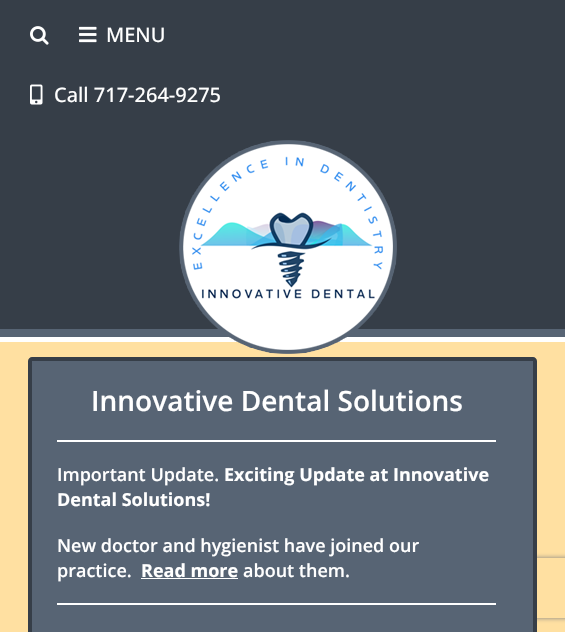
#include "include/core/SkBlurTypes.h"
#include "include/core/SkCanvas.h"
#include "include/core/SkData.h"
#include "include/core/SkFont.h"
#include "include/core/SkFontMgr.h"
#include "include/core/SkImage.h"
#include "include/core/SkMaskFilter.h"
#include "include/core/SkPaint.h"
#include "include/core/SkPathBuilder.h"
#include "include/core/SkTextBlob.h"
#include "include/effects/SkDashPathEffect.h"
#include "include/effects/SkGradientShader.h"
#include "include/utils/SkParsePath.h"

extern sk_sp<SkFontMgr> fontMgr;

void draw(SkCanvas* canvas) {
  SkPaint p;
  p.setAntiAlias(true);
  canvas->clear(SK_ColorWHITE);
  p.setColor(SkColorSetRGB(54, 62, 72));
  canvas->drawRect(SkRect::MakeLTRB(0, 0, 565, 329), p);
  p.setColor(SkColorSetRGB(87, 100, 116));
  canvas->drawRect(SkRect::MakeLTRB(0, 329, 565, 337), p);
  canvas->drawImageRect(SkImages::DeferredFromEncodedData(SkData::MakeFromFileName("images/1.png")), SkRect::MakeLTRB(30, 26, 49, 45), SkSamplingOptions());
  canvas->drawImageRect(SkImages::DeferredFromEncodedData(SkData::MakeFromFileName("images/2.png")), SkRect::MakeLTRB(79, 26, 97, 43), SkSamplingOptions());
  canvas->drawImageRect(SkImages::DeferredFromEncodedData(SkData::MakeFromFileName("images/3.png")), SkRect::MakeLTRB(30, 84, 43, 105), SkSamplingOptions());
  p.setColor(SkColorSetRGB(255, 224, 161));
  canvas->drawRect(SkRect::MakeLTRB(0, 342, 565, 632), p);
  canvas->drawImageRect(SkImages::DeferredFromEncodedData(SkData::MakeFromFileName("images/4.png")), SkRect::MakeLTRB(179, 140, 397, 354), SkSamplingOptions());
  p.setColor(SkColorSetRGB(54, 62, 72));
  canvas->drawPath(SkPathBuilder(SkPathFillType::kEvenOdd).moveTo(32, 357).lineTo(533, 357).cubicTo(535, 357, 537, 359, 537, 361).lineTo(28, 361).cubicTo(28, 359, 30, 357, 32, 357).close().moveTo(32, 361).lineTo(533, 361).close().detach(), p);
  canvas->save();
  canvas->clipPath(SkPathBuilder(SkPathFillType::kEvenOdd).moveTo(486, 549).lineTo(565, 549).lineTo(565, 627).lineTo(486, 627).close().moveTo(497, 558).lineTo(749, 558).cubicTo(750, 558, 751, 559, 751, 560).lineTo(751, 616).cubicTo(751, 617, 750, 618, 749, 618).lineTo(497, 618).cubicTo(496, 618, 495, 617, 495, 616).lineTo(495, 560).cubicTo(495, 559, 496, 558, 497, 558).close().detach(), true);
  p.setColor(SkColorSetRGB(128, 128, 128));
  p.setMaskFilter(SkMaskFilter::MakeBlur(kNormal_SkBlurStyle, 2.5f));
  canvas->drawRoundRect(SkRect::MakeLTRB(495, 558, 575, 618), 2, 2, p);
  p.setMaskFilter(nullptr);
  canvas->restore();
  p.setColor(SkColorSetRGB(87, 100, 116));
  canvas->drawRect(SkRect::MakeLTRB(32, 361, 533, 632), p);
  p.setColor(SkColorSetRGB(54, 62, 72));
  canvas->drawPath(SkPathBuilder(SkPathFillType::kEvenOdd).moveTo(28, 361).lineTo(537, 361).lineTo(537, 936).cubicTo(537, 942, 533, 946, 527, 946).lineTo(38, 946).cubicTo(32, 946, 28, 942, 28, 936).close().moveTo(32, 361).lineTo(533, 361).lineTo(533, 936).cubicTo(533, 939, 530, 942, 527, 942).lineTo(38, 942).cubicTo(35, 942, 32, 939, 32, 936).close().detach(), p);
  p.setColor(SK_ColorWHITE);
  canvas->drawRect(SkRect::MakeLTRB(57, 440, 496, 442), p);
  canvas->drawRect(SkRect::MakeLTRB(141, 578, 238, 579), p);
  canvas->drawRect(SkRect::MakeLTRB(57, 603, 496, 605), p);
  SkFont font1(fontMgr->matchFamilyStyle("Open Sans", SkFontStyle(500, SkFontStyle::kNormal_Width, SkFontStyle::kUpright_Slant)), 20);
  font1.setSubpixel(true);
  canvas->drawString("MENU", 106, 42, font1, p);
  canvas->drawString("Call 717-264-9275", 54, 102, font1, p);
  SkFont font2(fontMgr->matchFamilyStyle("Open Sans", SkFontStyle(600, SkFontStyle::kNormal_Width, SkFontStyle::kUpright_Slant)), 28);
  font2.setSubpixel(true);
  canvas->drawString("Innovative Dental Solutions", 91, 411, font2, p);
  SkFont font3(fontMgr->matchFamilyStyle("Open Sans", SkFontStyle(600, SkFontStyle::kNormal_Width, SkFontStyle::kUpright_Slant)), 18);
  font3.setSubpixel(true);
  canvas->drawString("Important Update.", 57, 481, font3, p);
  SkFont font4(fontMgr->matchFamilyStyle("Open Sans", SkFontStyle::Bold()), 18);
  font4.setSubpixel(true);
  canvas->drawString("Exciting Update at Innovative", 224, 481, font4, p);
  canvas->drawString("Dental Solutions!", 57, 506, font4, p);
  canvas->drawString("New doctor and hygienist have joined our", 57, 552, font3, p);
  canvas->drawString("practice.", 57, 577, font3, p);
  canvas->drawString("Read more", 141, 577, font4, p);
  canvas->drawString("about them.", 243, 577, font3, p);
}
